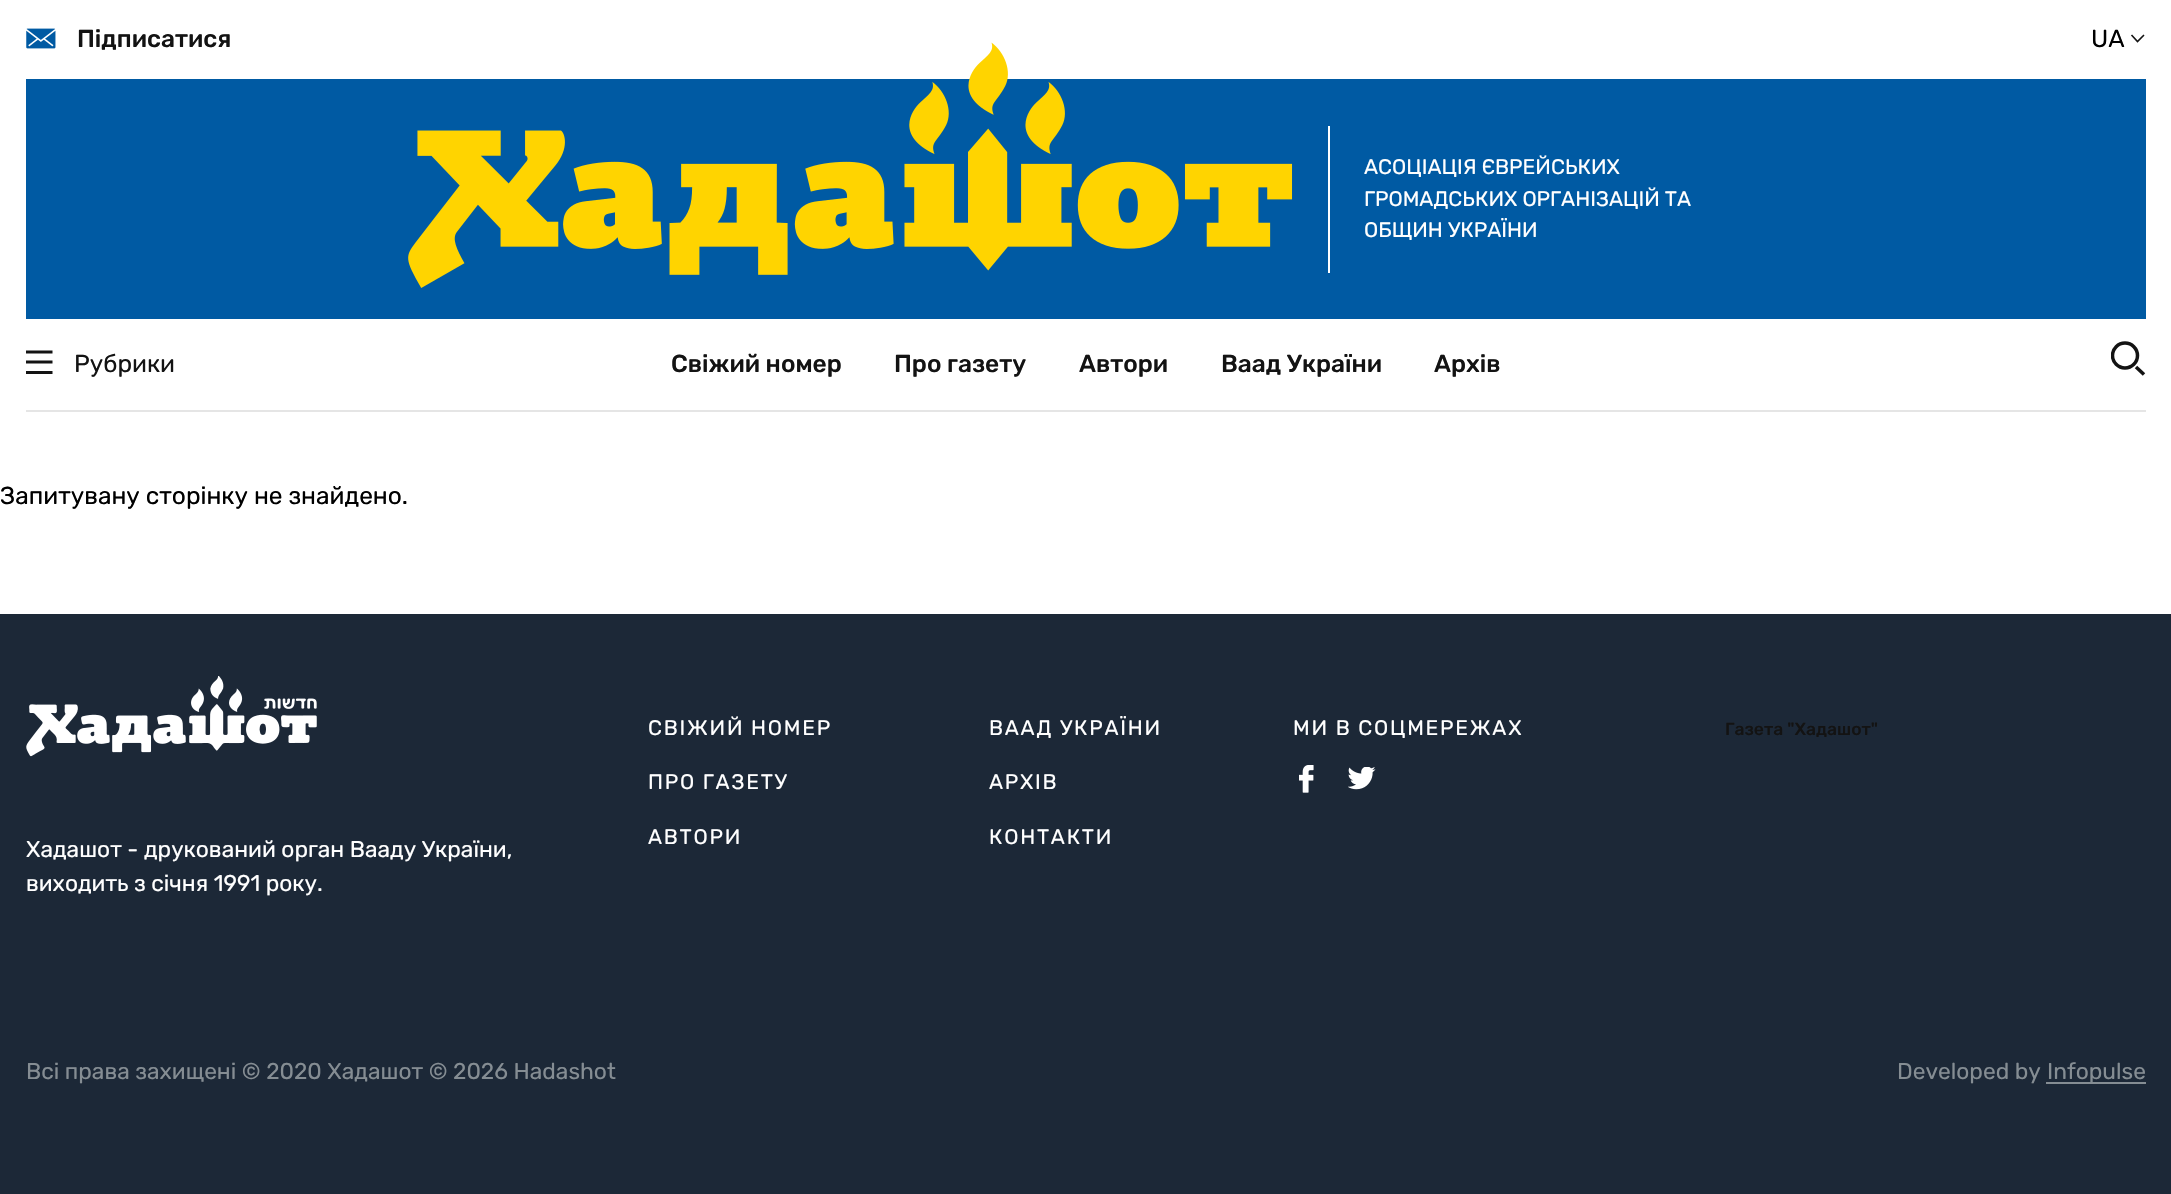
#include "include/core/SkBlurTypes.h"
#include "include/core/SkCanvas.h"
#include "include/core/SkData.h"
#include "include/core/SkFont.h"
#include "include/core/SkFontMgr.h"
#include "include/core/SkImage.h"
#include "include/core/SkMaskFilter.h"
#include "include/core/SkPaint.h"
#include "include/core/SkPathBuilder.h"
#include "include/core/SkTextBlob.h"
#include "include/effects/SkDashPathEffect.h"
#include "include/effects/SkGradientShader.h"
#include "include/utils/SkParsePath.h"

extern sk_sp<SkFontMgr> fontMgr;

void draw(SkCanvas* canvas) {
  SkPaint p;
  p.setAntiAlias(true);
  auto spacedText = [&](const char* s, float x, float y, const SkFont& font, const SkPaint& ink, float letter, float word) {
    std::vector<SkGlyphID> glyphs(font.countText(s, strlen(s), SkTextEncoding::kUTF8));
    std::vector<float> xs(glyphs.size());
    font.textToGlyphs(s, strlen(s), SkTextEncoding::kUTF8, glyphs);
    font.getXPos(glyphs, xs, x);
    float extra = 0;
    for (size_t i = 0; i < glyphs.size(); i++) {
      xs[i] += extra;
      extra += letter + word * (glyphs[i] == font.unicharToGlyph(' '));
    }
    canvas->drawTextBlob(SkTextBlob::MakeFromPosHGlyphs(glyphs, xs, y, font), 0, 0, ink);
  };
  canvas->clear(SK_ColorWHITE);
  canvas->drawImageRect(SkImages::DeferredFromEncodedData(SkData::MakeFromFileName("images/1.png")), SkRect::MakeLTRB(26, 28, 56, 49), SkSamplingOptions());
  p.setStyle(SkPaint::kStroke_Style);
  p.setStrokeWidth(1.6f);
  p.setColor(SkColorSetRGB(19, 19, 19));
  canvas->drawPath(SkPathBuilder().moveTo(2131.5f, 35).lineTo(2137.5f, 41.5f).lineTo(2144, 35).detach(), p);
  p.setStyle(SkPaint::kFill_Style);
  p.setColor(SkColorSetRGB(0, 90, 163));
  canvas->drawRect(SkRect::MakeLTRB(26, 79, 2146, 319), p);
  canvas->drawImageRect(SkImages::DeferredFromEncodedData(SkData::MakeFromFileName("images/2.png")), SkRect::MakeLTRB(408, 42, 1293, 288), SkSamplingOptions());
  p.setColor(SK_ColorWHITE);
  canvas->drawRect(SkRect::MakeLTRB(1328, 126, 1330, 273), p);
  p.setColor(SkColorSetRGB(229, 229, 229));
  canvas->drawRect(SkRect::MakeLTRB(26, 410, 2146, 412), p);
  p.setStyle(SkPaint::kStroke_Style);
  p.setStrokeWidth(2.9f);
  p.setColor(SkColorSetRGB(19, 19, 19));
  canvas->drawPath(SkPathBuilder().moveTo(52.5f, 362).lineTo(26, 362).moveTo(52.5f, 352).lineTo(26, 352).moveTo(52.5f, 372.5f).lineTo(26, 372.5f).detach(), p);
  canvas->save();
  canvas->clipRect(SkRect::MakeLTRB(2111, 341, 2146, 376));
  p.setStrokeWidth(3.5f);
  canvas->drawCircle(2125, 355.5f, 12.5f, p);
  canvas->restore();
  canvas->drawPath(SkPathBuilder().moveTo(2136, 367).lineTo(2144, 374.5f).detach(), p);
  p.setStyle(SkPaint::kFill_Style);
  p.setColor(SkColorSetRGB(28, 40, 55));
  canvas->drawRect(SkRect::MakeLTRB(0, 614, 2171, 1194), p);
  canvas->drawImageRect(SkImages::DeferredFromEncodedData(SkData::MakeFromFileName("images/3.png")), SkRect::MakeLTRB(1299, 765, 1314, 793), SkSamplingOptions());
  canvas->drawImageRect(SkImages::DeferredFromEncodedData(SkData::MakeFromFileName("images/4.png")), SkRect::MakeLTRB(1348, 767, 1376, 790), SkSamplingOptions());
  canvas->drawImageRect(SkImages::DeferredFromEncodedData(SkData::MakeFromFileName("images/5.png")), SkRect::MakeLTRB(26, 676, 317, 757), SkSamplingOptions());
  p.setColor(SkColorSetRGB(133, 141, 147));
  canvas->drawRect(SkRect::MakeLTRB(2046, 1082, 2146, 1084), p);
  SkFont font1(fontMgr->matchFamilyStyle("Rubik", SkFontStyle(500, SkFontStyle::kNormal_Width, SkFontStyle::kUpright_Slant)), 24.5f);
  font1.setSubpixel(true);
  p.setColor(SkColorSetRGB(19, 19, 19));
  canvas->drawString("Підписатися", 77, 47, font1, p);
  SkFont font2(fontMgr->matchFamilyStyle("Rubik", SkFontStyle::Normal()), 24.5f);
  font2.setSubpixel(true);
  p.setColor(SK_ColorBLACK);
  canvas->drawString("UA", 2091, 47, font2, p);
  SkFont font3(fontMgr->matchFamilyStyle("Rubik", SkFontStyle::Normal()), 21);
  font3.setSubpixel(true);
  p.setColor(SK_ColorWHITE);
  canvas->drawString("АСОЦІАЦІЯ ЄВРЕЙСЬКИХ", 1364, 174, font3, p);
  canvas->drawString("ГРОМАДСЬКИХ ОРГАНІЗАЦІЙ ТА", 1364, 206, font3, p);
  canvas->drawString("ОБЩИН УКРАЇНИ", 1364, 237, font3, p);
  p.setColor(SkColorSetRGB(19, 19, 19));
  canvas->drawString("Рубрики", 74, 372, font2, p);
  canvas->drawString("Свіжий номер", 671, 372, font1, p);
  canvas->drawString("Про газету", 894, 372, font1, p);
  canvas->drawString("Автори", 1079, 372, font1, p);
  canvas->drawString("Ваад України", 1221, 372, font1, p);
  canvas->drawString("Архів", 1434, 372, font1, p);
  p.setColor(SK_ColorBLACK);
  canvas->drawString("Запитувану сторінку не знайдено.", 0, 504, font2, p);
  p.setColor(SK_ColorWHITE);
  spacedText("СВІЖИЙ НОМЕР", 648, 735, font3, p, 1.75f, 0);
  spacedText("ПРО ГАЗЕТУ", 648, 789, font3, p, 1.75f, 0);
  spacedText("АВТОРИ", 648, 844, font3, p, 1.75f, 0);
  spacedText("ВААД УКРАЇНИ", 989, 735, font3, p, 1.75f, 0);
  spacedText("АРХІВ", 989, 789, font3, p, 1.75f, 0);
  spacedText("КОНТАКТИ", 989, 844, font3, p, 1.75f, 0);
  spacedText("МИ В СОЦМЕРЕЖАХ", 1293, 735, font3, p, 1.75f, 0);
  SkFont font4(fontMgr->matchFamilyStyle("Rubik", SkFontStyle(500, SkFontStyle::kNormal_Width, SkFontStyle::kUpright_Slant)), 17.5f);
  font4.setSubpixel(true);
  p.setColor(SkColorSetRGB(19, 19, 19));
  canvas->drawString("Газета \"Хадашот\"", 1725, 735, font4, p);
  SkFont font5(fontMgr->matchFamilyStyle("Rubik", SkFontStyle::Normal()), 22.75f);
  font5.setSubpixel(true);
  p.setColor(SK_ColorWHITE);
  canvas->drawString("Хадашот - друкований орган Вааду України,", 26, 857, font5, p);
  canvas->drawString("виходить з січня 1991 року.", 26, 891, font5, p);
  p.setColor(SkColorSetRGB(133, 141, 147));
  canvas->drawString("Всі права захищені © 2020 Хадашот © 2026 Hadashot", 26, 1079, font5, p);
  canvas->drawString("Developed by", 1897, 1079, font5, p);
  canvas->drawString("Infopulse", 2047, 1079, font5, p);
}
